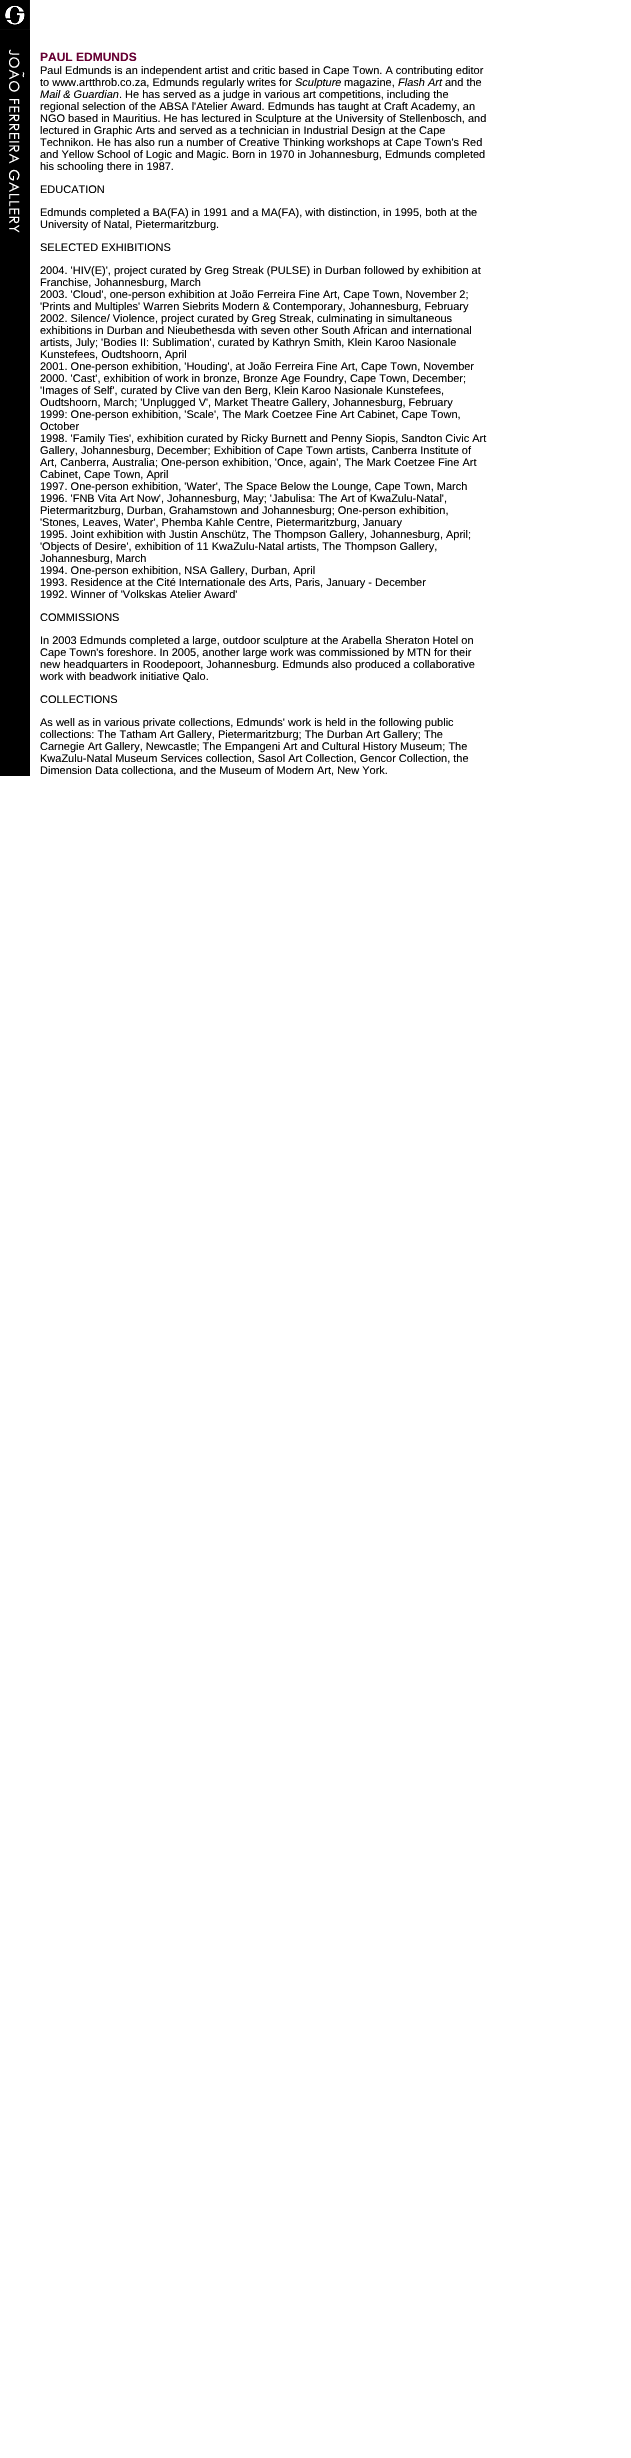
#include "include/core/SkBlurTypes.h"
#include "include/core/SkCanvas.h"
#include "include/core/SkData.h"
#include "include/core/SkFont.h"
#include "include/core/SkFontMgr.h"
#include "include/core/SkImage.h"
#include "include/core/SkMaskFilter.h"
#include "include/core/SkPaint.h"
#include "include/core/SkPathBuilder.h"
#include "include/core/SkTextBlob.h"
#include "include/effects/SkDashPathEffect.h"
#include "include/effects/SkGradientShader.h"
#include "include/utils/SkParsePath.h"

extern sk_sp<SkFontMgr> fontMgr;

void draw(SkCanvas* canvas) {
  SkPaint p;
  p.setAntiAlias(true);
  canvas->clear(SK_ColorWHITE);
  p.setColor(SK_ColorBLACK);
  canvas->drawRect(SkRect::MakeLTRB(0, 233, 30, 776), p);
  canvas->drawImageRect(SkImages::DeferredFromEncodedData(SkData::MakeFromFileName("images/1.png")), SkRect::MakeLTRB(0, 0, 30, 233), SkSamplingOptions());
  SkFont font1(fontMgr->matchFamilyStyle("Liberation Sans", SkFontStyle::Bold()), 12);
  font1.setSubpixel(true);
  p.setColor(SkColorSetRGB(102, 0, 51));
  canvas->drawString("PAUL EDMUNDS", 40, 61, font1, p);
  SkFont font2(fontMgr->matchFamilyStyle("Liberation Sans", SkFontStyle::Normal()), 11);
  font2.setSubpixel(true);
  p.setColor(SK_ColorBLACK);
  canvas->drawString("Paul Edmunds is an independent artist and critic based in Cape Town. A contributing editor", 40, 74, font2, p);
  canvas->drawString("to www.artthrob.co.za, Edmunds regularly writes for", 40, 86, font2, p);
  SkFont font3(fontMgr->matchFamilyStyle("Liberation Sans", SkFontStyle::Italic()), 11);
  font3.setSubpixel(true);
  canvas->drawString("Sculpture", 295, 86, font3, p);
  canvas->drawString("magazine,", 344, 86, font2, p);
  canvas->drawString("Flash Art", 398, 86, font3, p);
  canvas->drawString("and the", 445, 86, font2, p);
  canvas->drawString("Mail & Guardian", 40, 98, font3, p);
  canvas->drawString(". He has served as a judge in various art competitions, including the", 119, 98, font2, p);
  canvas->drawString("regional selection of the ABSA l'Atelier Award. Edmunds has taught at Craft Academy, an", 40, 110, font2, p);
  canvas->drawString("NGO based in Mauritius. He has lectured in Sculpture at the University of Stellenbosch, and", 40, 122, font2, p);
  canvas->drawString("lectured in Graphic Arts and served as a technician in Industrial Design at the Cape", 40, 134, font2, p);
  canvas->drawString("Technikon. He has also run a number of Creative Thinking workshops at Cape Town's Red", 40, 146, font2, p);
  canvas->drawString("and Yellow School of Logic and Magic. Born in 1970 in Johannesburg, Edmunds completed", 40, 158, font2, p);
  canvas->drawString("his schooling there in 1987.", 40, 170, font2, p);
  canvas->drawString("EDUCATION", 40, 193, font2, p);
  canvas->drawString("Edmunds completed a BA(FA) in 1991 and a MA(FA), with distinction, in 1995, both at the", 40, 216, font2, p);
  canvas->drawString("University of Natal, Pietermaritzburg.", 40, 228, font2, p);
  canvas->drawString("SELECTED EXHIBITIONS", 40, 251, font2, p);
  canvas->drawString("2004. 'HIV(E)', project curated by Greg Streak (PULSE) in Durban followed by exhibition at", 40, 274, font2, p);
  canvas->drawString("Franchise, Johannesburg, March", 40, 286, font2, p);
  canvas->drawString("2003. 'Cloud', one-person exhibition at João Ferreira Fine Art, Cape Town, November 2;", 40, 298, font2, p);
  canvas->drawString("'Prints and Multiples' Warren Siebrits Modern & Contemporary, Johannesburg, February", 40, 310, font2, p);
  canvas->drawString("2002. Silence/ Violence, project curated by Greg Streak, culminating in simultaneous", 40, 322, font2, p);
  canvas->drawString("exhibitions in Durban and Nieubethesda with seven other South African and international", 40, 334, font2, p);
  canvas->drawString("artists, July; 'Bodies II: Sublimation', curated by Kathryn Smith, Klein Karoo Nasionale", 40, 346, font2, p);
  canvas->drawString("Kunstefees, Oudtshoorn, April", 40, 358, font2, p);
  canvas->drawString("2001. One-person exhibition, 'Houding', at João Ferreira Fine Art, Cape Town, November", 40, 370, font2, p);
  canvas->drawString("2000. 'Cast', exhibition of work in bronze, Bronze Age Foundry, Cape Town, December;", 40, 382, font2, p);
  canvas->drawString("'Images of Self', curated by Clive van den Berg, Klein Karoo Nasionale Kunstefees,", 40, 394, font2, p);
  canvas->drawString("Oudtshoorn, March; 'Unplugged V', Market Theatre Gallery, Johannesburg, February", 40, 406, font2, p);
  canvas->drawString("1999: One-person exhibition, 'Scale', The Mark Coetzee Fine Art Cabinet, Cape Town,", 40, 418, font2, p);
  canvas->drawString("October", 40, 430, font2, p);
  canvas->drawString("1998. 'Family Ties', exhibition curated by Ricky Burnett and Penny Siopis, Sandton Civic Art", 40, 442, font2, p);
  canvas->drawString("Gallery, Johannesburg, December; Exhibition of Cape Town artists, Canberra Institute of", 40, 454, font2, p);
  canvas->drawString("Art, Canberra, Australia; One-person exhibition, 'Once, again', The Mark Coetzee Fine Art", 40, 466, font2, p);
  canvas->drawString("Cabinet, Cape Town, April", 40, 478, font2, p);
  canvas->drawString("1997. One-person exhibition, 'Water', The Space Below the Lounge, Cape Town, March", 40, 490, font2, p);
  canvas->drawString("1996. 'FNB Vita Art Now', Johannesburg, May; 'Jabulisa: The Art of KwaZulu-Natal',", 40, 502, font2, p);
  canvas->drawString("Pietermaritzburg, Durban, Grahamstown and Johannesburg; One-person exhibition,", 40, 514, font2, p);
  canvas->drawString("'Stones, Leaves, Water', Phemba Kahle Centre, Pietermaritzburg, January", 40, 526, font2, p);
  canvas->drawString("1995. Joint exhibition with Justin Anschütz, The Thompson Gallery, Johannesburg, April;", 40, 538, font2, p);
  canvas->drawString("'Objects of Desire', exhibition of 11 KwaZulu-Natal artists, The Thompson Gallery,", 40, 550, font2, p);
  canvas->drawString("Johannesburg, March", 40, 562, font2, p);
  canvas->drawString("1994. One-person exhibition, NSA Gallery, Durban, April", 40, 574, font2, p);
  canvas->drawString("1993. Residence at the Cité Internationale des Arts, Paris, January - December", 40, 586, font2, p);
  canvas->drawString("1992. Winner of 'Volkskas Atelier Award'", 40, 598, font2, p);
  canvas->drawString("COMMISSIONS", 40, 621, font2, p);
  canvas->drawString("In 2003 Edmunds completed a large, outdoor sculpture at the Arabella Sheraton Hotel on", 40, 644, font2, p);
  canvas->drawString("Cape Town's foreshore. In 2005, another large work was commissioned by MTN for their", 40, 656, font2, p);
  canvas->drawString("new headquarters in Roodepoort, Johannesburg. Edmunds also produced a collaborative", 40, 668, font2, p);
  canvas->drawString("work with beadwork initiative Qalo.", 40, 680, font2, p);
  canvas->drawString("COLLECTIONS", 40, 703, font2, p);
  canvas->drawString("As well as in various private collections, Edmunds' work is held in the following public", 40, 726, font2, p);
  canvas->drawString("collections: The Tatham Art Gallery, Pietermaritzburg; The Durban Art Gallery; The", 40, 738, font2, p);
  canvas->drawString("Carnegie Art Gallery, Newcastle; The Empangeni Art and Cultural History Museum; The", 40, 750, font2, p);
  canvas->drawString("KwaZulu-Natal Museum Services collection, Sasol Art Collection, Gencor Collection, the", 40, 762, font2, p);
  canvas->drawString("Dimension Data collectiona, and the Museum of Modern Art, New York.", 40, 774, font2, p);
}
